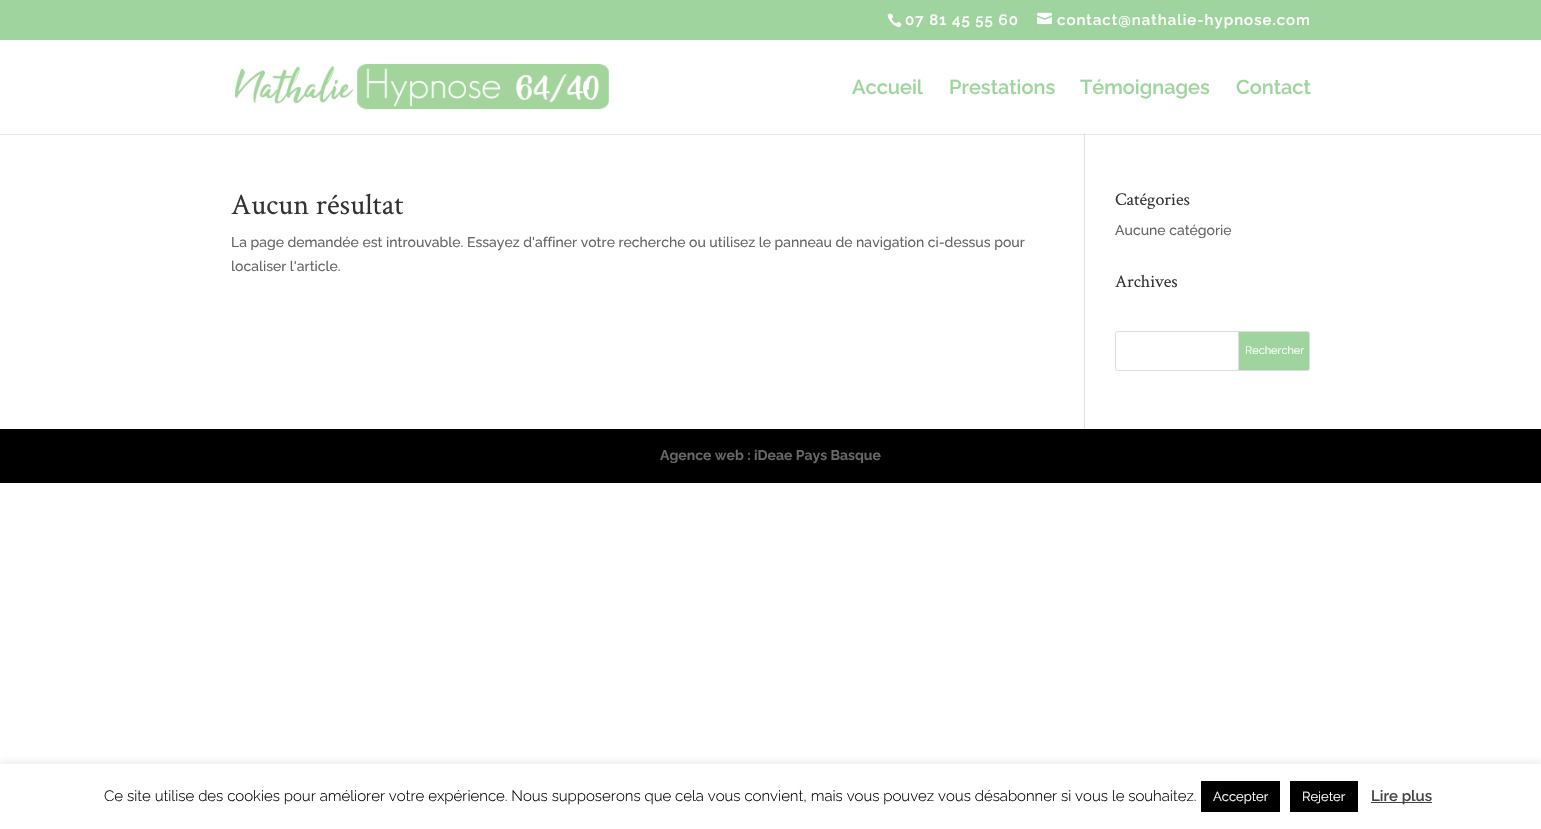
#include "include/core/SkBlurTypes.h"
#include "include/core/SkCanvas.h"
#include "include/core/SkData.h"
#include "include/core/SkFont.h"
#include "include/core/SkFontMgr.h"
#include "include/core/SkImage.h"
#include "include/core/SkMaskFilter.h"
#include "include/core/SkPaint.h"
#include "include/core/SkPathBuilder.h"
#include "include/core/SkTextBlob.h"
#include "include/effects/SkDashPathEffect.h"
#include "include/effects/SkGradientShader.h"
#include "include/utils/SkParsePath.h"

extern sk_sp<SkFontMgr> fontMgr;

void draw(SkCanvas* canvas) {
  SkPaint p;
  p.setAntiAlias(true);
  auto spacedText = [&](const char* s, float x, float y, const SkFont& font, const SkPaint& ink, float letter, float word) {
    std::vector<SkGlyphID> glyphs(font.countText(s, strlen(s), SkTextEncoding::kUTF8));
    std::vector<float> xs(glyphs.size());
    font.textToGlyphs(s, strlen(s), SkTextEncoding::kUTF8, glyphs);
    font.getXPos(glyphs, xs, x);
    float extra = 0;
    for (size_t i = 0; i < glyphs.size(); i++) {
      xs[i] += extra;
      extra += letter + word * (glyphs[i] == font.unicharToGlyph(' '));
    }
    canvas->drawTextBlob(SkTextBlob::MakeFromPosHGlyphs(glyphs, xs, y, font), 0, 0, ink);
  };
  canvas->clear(SK_ColorWHITE);
  p.setColor(SkColorSetRGB(230, 230, 230));
  canvas->drawRect(SkRect::MakeLTRB(0, 134, 1541, 135), p);
  p.setColor(SkColorSetRGB(160, 212, 159));
  canvas->drawRect(SkRect::MakeLTRB(0, 0, 1541, 40), p);
  canvas->drawImageRect(SkImages::DeferredFromEncodedData(SkData::MakeFromFileName("images/1.png")), SkRect::MakeLTRB(887, 13, 902, 28), SkSamplingOptions());
  canvas->drawImageRect(SkImages::DeferredFromEncodedData(SkData::MakeFromFileName("images/2.png")), SkRect::MakeLTRB(1037, 12, 1052, 25), SkSamplingOptions());
  p.setColor(SkColorSetRGB(226, 226, 226));
  canvas->drawRect(SkRect::MakeLTRB(1084, 133, 1085, 429), p);
  p.setColor(SK_ColorWHITE);
  canvas->drawRect(SkRect::MakeLTRB(1084, 133, 1085, 134), p);
  canvas->drawImageRect(SkImages::DeferredFromEncodedData(SkData::MakeFromFileName("images/3.png")), SkRect::MakeLTRB(234, 63, 609, 110), SkSamplingOptions());
  p.setColor(SkColorSetRGB(203, 203, 203));
  canvas->drawRect(SkRect::MakeLTRB(1084, 134, 1085, 135), p);
  p.setStyle(SkPaint::kStroke_Style);
  p.setStrokeWidth(1);
  p.setColor(SkColorSetRGB(221, 221, 221));
  canvas->drawRoundRect(SkRect::MakeLTRB(1115.5f, 331.5f, 1309.5f, 370.5f), 2.5f, 2.5f, p);
  p.setStyle(SkPaint::kFill_Style);
  p.setColor(SkColorSetRGB(160, 212, 159));
  canvas->drawPath(SkPathBuilder().moveTo(1238.5f, 331.5f).lineTo(1307, 331.5f).cubicTo(1308.5f, 331.5f, 1309.5f, 332.5f, 1309.5f, 334).lineTo(1309.5f, 368).cubicTo(1309.5f, 369.5f, 1308.5f, 370.5f, 1307, 370.5f).lineTo(1238.5f, 370.5f).close().detach(), p);
  p.setStyle(SkPaint::kStroke_Style);
  p.setColor(SkColorSetRGB(221, 221, 221));
  canvas->drawPath(SkPathBuilder().moveTo(1238.5f, 331.5f).lineTo(1307, 331.5f).cubicTo(1308.5f, 331.5f, 1309.5f, 332.5f, 1309.5f, 334).lineTo(1309.5f, 368).cubicTo(1309.5f, 369.5f, 1308.5f, 370.5f, 1307, 370.5f).lineTo(1238.5f, 370.5f).close().detach(), p);
  p.setStyle(SkPaint::kFill_Style);
  p.setColor(SK_ColorBLACK);
  canvas->drawRect(SkRect::MakeLTRB(0, 429, 1541, 483), p);
  canvas->save();
  canvas->clipRect(SkRect::MakeLTRB(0, 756, 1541, 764));
  p.setColor(SkColorSetARGB(77, 172, 171, 171));
  p.setMaskFilter(SkMaskFilter::MakeBlur(kNormal_SkBlurStyle, 5));
  canvas->drawRect(SkRect::MakeLTRB(0, 763, 1541, 828), p);
  p.setMaskFilter(nullptr);
  canvas->restore();
  p.setColor(SK_ColorBLACK);
  canvas->drawRect(SkRect::MakeLTRB(1201, 781, 1280, 812), p);
  canvas->drawRect(SkRect::MakeLTRB(1290, 781, 1358, 812), p);
  p.setColor(SkColorSetRGB(68, 68, 68));
  canvas->drawRect(SkRect::MakeLTRB(1371, 802, 1432, 803), p);
  SkFont font1(fontMgr->matchFamilyStyle("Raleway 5", SkFontStyle(100, SkFontStyle::kNormal_Width, SkFontStyle::kUpright_Slant)), 15);
  font1.setSubpixel(true);
  p.setColor(SK_ColorWHITE);
  spacedText("07 81 45 55 60", 905, 25, font1, p, 1, 0);
  spacedText("contact@nathalie-hypnose.com", 1057, 25, font1, p, 1, 0);
  SkFont font2(fontMgr->matchFamilyStyle("Raleway 5", SkFontStyle(100, SkFontStyle::kNormal_Width, SkFontStyle::kUpright_Slant)), 20);
  font2.setSubpixel(true);
  p.setColor(SkColorSetRGB(160, 212, 159));
  canvas->drawString("Accueil", 852, 94, font2, p);
  canvas->drawString("Prestations", 949, 94, font2, p);
  canvas->drawString("Témoignages", 1080, 94, font2, p);
  canvas->drawString("Contact", 1236, 94, font2, p);
  SkFont font3(fontMgr->matchFamilyStyle("Crimson Text", SkFontStyle::Normal()), 30);
  font3.setSubpixel(true);
  p.setColor(SkColorSetRGB(51, 51, 51));
  canvas->drawString("Aucun résultat", 231, 214, font3, p);
  SkFont font4(fontMgr->matchFamilyStyle("Raleway", SkFontStyle(100, SkFontStyle::kNormal_Width, SkFontStyle::kUpright_Slant)), 14);
  font4.setSubpixel(true);
  p.setColor(SkColorSetRGB(102, 102, 102));
  canvas->drawString("La page demandée est introuvable. Essayez d'affiner votre recherche ou utilisez le panneau de navigation ci-dessus pour", 231, 247, font4, p);
  canvas->drawString("localiser l'article.", 231, 271, font4, p);
  SkFont font5(fontMgr->matchFamilyStyle("Crimson Text", SkFontStyle::Normal()), 18);
  font5.setSubpixel(true);
  p.setColor(SkColorSetRGB(51, 51, 51));
  canvas->drawString("Catégories", 1115, 205, font5, p);
  p.setColor(SkColorSetRGB(102, 102, 102));
  canvas->drawString("Aucune catégorie", 1115, 235, font4, p);
  p.setColor(SkColorSetRGB(51, 51, 51));
  canvas->drawString("Archives", 1115, 287, font5, p);
  SkFont font6(fontMgr->matchFamilyStyle("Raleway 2", SkFontStyle(100, SkFontStyle::kNormal_Width, SkFontStyle::kUpright_Slant)), 11);
  font6.setSubpixel(true);
  p.setColor(SK_ColorWHITE);
  canvas->drawString("Rechercher", 1245, 354, font6, p);
  SkFont font7(fontMgr->matchFamilyStyle("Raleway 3", SkFontStyle(100, SkFontStyle::kNormal_Width, SkFontStyle::kUpright_Slant)), 14);
  font7.setSubpixel(true);
  p.setColor(SkColorSetRGB(102, 102, 102));
  canvas->drawString("Agence web : iDeae Pays Basque", 660, 460, font7, p);
  SkFont font8(fontMgr->matchFamilyStyle("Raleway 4", SkFontStyle(100, SkFontStyle::kNormal_Width, SkFontStyle::kUpright_Slant)), 15);
  font8.setSubpixel(true);
  p.setColor(SK_ColorBLACK);
  canvas->drawString("Ce site utilise des cookies pour améliorer votre expérience. Nous supposerons que cela vous convient, mais vous pouvez vous désabonner si vous le souhaitez.", 104, 801, font8, p);
  SkFont font9(fontMgr->matchFamilyStyle("Raleway 2", SkFontStyle(100, SkFontStyle::kNormal_Width, SkFontStyle::kUpright_Slant)), 13);
  font9.setSubpixel(true);
  p.setColor(SK_ColorWHITE);
  canvas->drawString("Accepter", 1213, 801, font9, p);
  canvas->drawString("Rejeter", 1302, 801, font9, p);
  p.setColor(SkColorSetRGB(68, 68, 68));
  canvas->drawString("Lire plus", 1371, 801, font1, p);
}
